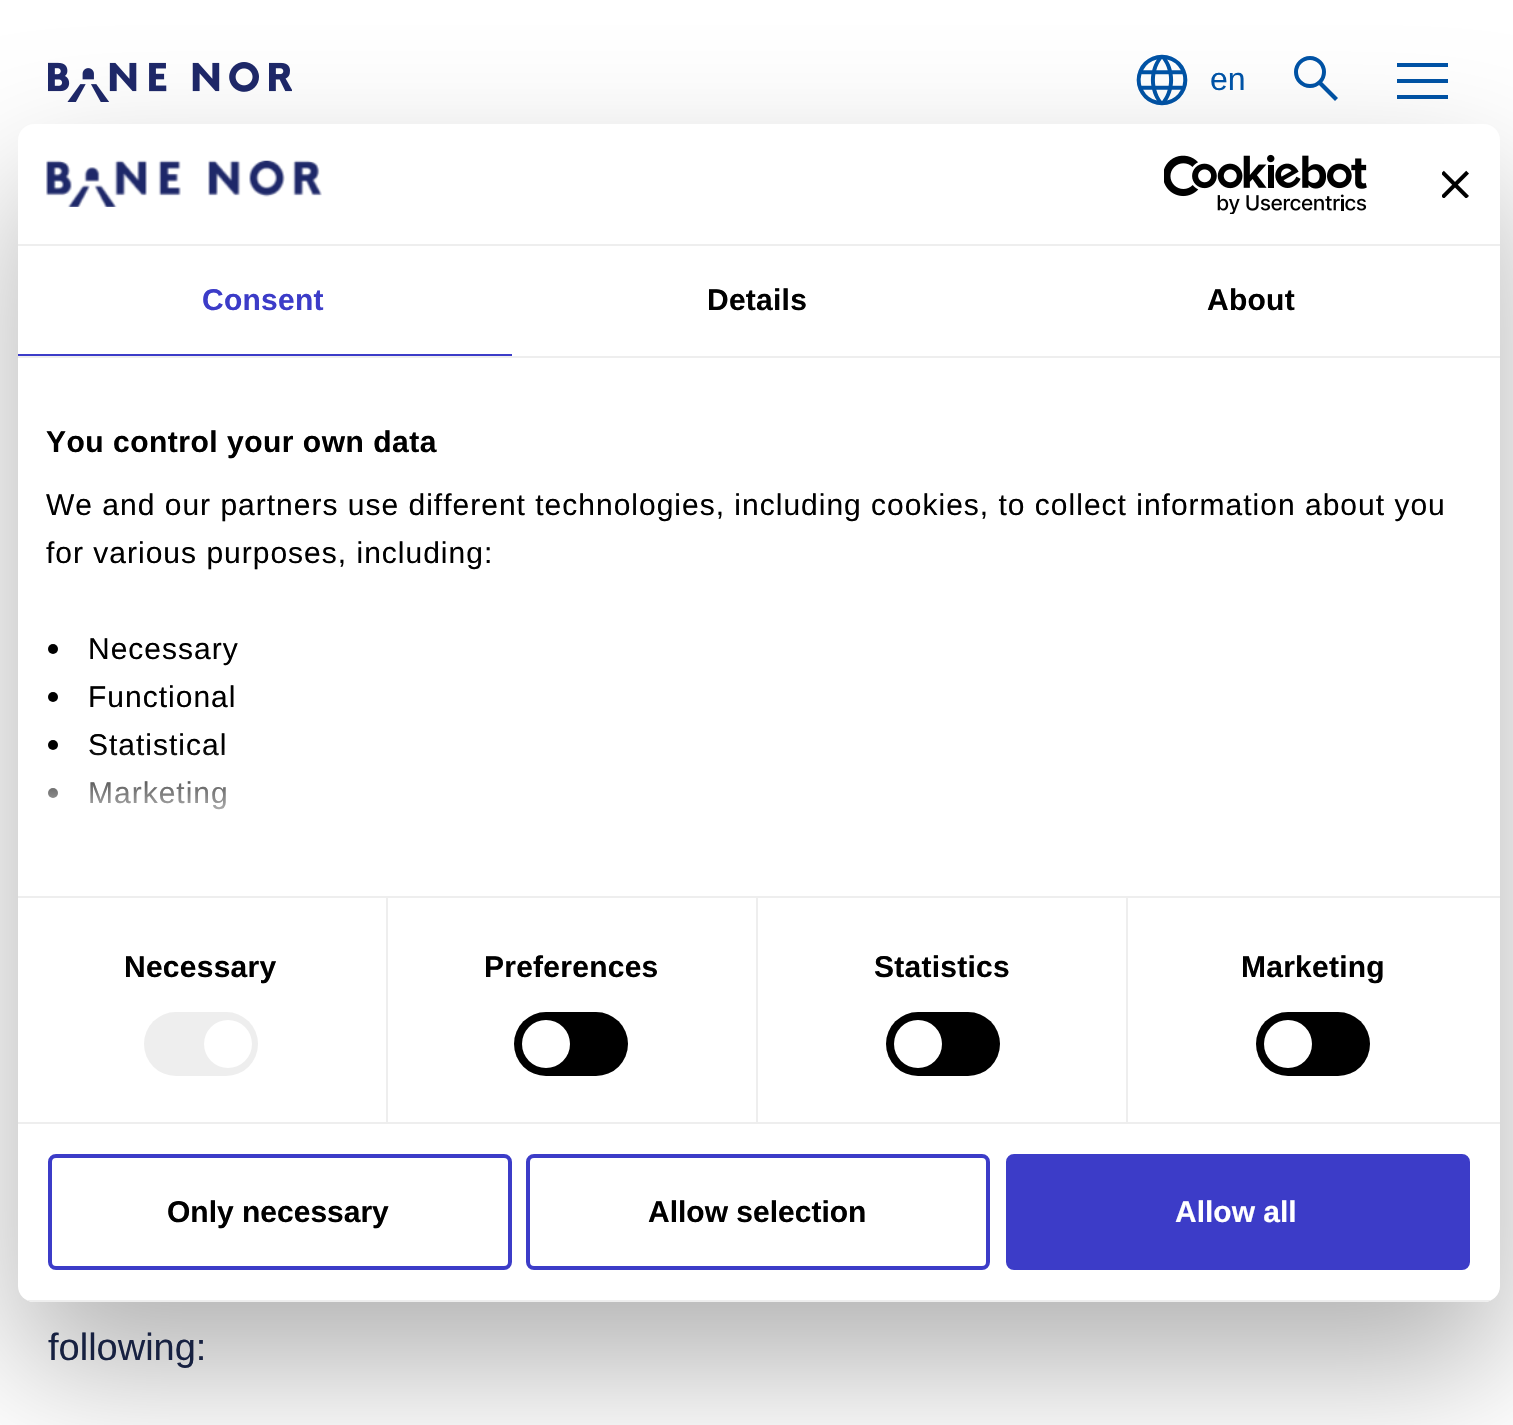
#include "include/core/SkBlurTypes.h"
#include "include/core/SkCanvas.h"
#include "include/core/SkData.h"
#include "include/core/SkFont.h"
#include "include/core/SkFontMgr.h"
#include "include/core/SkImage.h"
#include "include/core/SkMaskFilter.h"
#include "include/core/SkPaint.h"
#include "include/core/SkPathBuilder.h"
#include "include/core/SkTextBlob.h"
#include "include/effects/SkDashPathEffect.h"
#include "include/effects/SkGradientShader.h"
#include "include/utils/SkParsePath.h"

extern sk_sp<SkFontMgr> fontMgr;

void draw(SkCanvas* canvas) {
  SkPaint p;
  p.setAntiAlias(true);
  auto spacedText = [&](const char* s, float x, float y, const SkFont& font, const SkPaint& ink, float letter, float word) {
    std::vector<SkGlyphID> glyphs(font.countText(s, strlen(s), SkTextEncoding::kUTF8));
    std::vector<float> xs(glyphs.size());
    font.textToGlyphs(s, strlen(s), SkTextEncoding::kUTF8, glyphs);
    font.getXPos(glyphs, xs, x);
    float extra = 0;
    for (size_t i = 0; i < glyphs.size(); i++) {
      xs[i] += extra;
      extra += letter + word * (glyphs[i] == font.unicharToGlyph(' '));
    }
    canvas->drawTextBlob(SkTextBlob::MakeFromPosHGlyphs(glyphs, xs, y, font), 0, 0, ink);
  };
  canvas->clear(SK_ColorWHITE);
  canvas->drawImageRect(SkImages::DeferredFromEncodedData(SkData::MakeFromFileName("images/1.png")), SkRect::MakeLTRB(48, 62, 292, 102), SkSamplingOptions());
  canvas->drawImageRect(SkImages::DeferredFromEncodedData(SkData::MakeFromFileName("images/2.png")), SkRect::MakeLTRB(1136, 54, 1188, 106), SkSamplingOptions());
  p.setStyle(SkPaint::kStroke_Style);
  p.setStrokeWidth(4);
  p.setColor(SkColorSetRGB(0, 83, 166));
  canvas->drawCircle(1310, 72, 14, p);
  p.setStyle(SkPaint::kFill_Style);
  canvas->drawPath(SkPathBuilder().moveTo(1318, 84).lineTo(1321, 81).lineTo(1338, 98).lineTo(1335, 101).close().detach(), p);
  canvas->drawRect(SkRect::MakeLTRB(1397, 63, 1448, 67), p);
  canvas->drawRect(SkRect::MakeLTRB(1397, 79, 1448, 83), p);
  canvas->drawRect(SkRect::MakeLTRB(1397, 95, 1448, 99), p);
  p.setColor(SkColorSetARGB(77, 0, 0, 0));
  p.setMaskFilter(SkMaskFilter::MakeBlur(kNormal_SkBlurStyle, 68));
  canvas->drawRoundRect(SkRect::MakeLTRB(18, 188, 1500, 1366), 16, 16, p);
  p.setMaskFilter(nullptr);
  p.setColor(SK_ColorWHITE);
  canvas->drawRoundRect(SkRect::MakeLTRB(18, 124, 1500, 1302), 16, 16, p);
  p.setColor(SkColorSetRGB(238, 238, 238));
  canvas->drawRect(SkRect::MakeLTRB(18, 244, 1500, 246), p);
  canvas->drawImageRect(SkImages::DeferredFromEncodedData(SkData::MakeFromFileName("images/3.png")), SkRect::MakeLTRB(46, 160, 322, 207), SkSamplingOptions());
  canvas->drawImageRect(SkImages::DeferredFromEncodedData(SkData::MakeFromFileName("images/4.png")), SkRect::MakeLTRB(1164, 154, 1367, 214), SkSamplingOptions());
  canvas->drawImageRect(SkImages::DeferredFromEncodedData(SkData::MakeFromFileName("images/5.png")), SkRect::MakeLTRB(1442, 170, 1469, 198), SkSamplingOptions());
  canvas->drawRect(SkRect::MakeLTRB(18, 356, 1500, 358), p);
  p.setColor(SkColorSetRGB(60, 60, 200));
  canvas->drawRect(SkRect::MakeLTRB(18, 354, 512, 356), p);
  p.setColor(SkColorSetRGB(238, 238, 238));
  canvas->drawRect(SkRect::MakeLTRB(18, 896, 1500, 898), p);
  p.setColor(SK_ColorBLACK);
  canvas->drawCircle(53, 649, 5, p);
  canvas->drawCircle(53, 697, 5, p);
  canvas->drawCircle(53, 745, 5, p);
  canvas->drawCircle(53, 793, 5, p);
  p.setColor(SkColorSetRGB(238, 238, 238));
  canvas->drawRect(SkRect::MakeLTRB(18, 1122, 1500, 1124), p);
  canvas->drawRect(SkRect::MakeLTRB(386, 898, 388, 1122), p);
  canvas->drawRoundRect(SkRect::MakeLTRB(144, 1012, 258, 1076), 32, 32, p);
  p.setColor(SK_ColorWHITE);
  canvas->drawCircle(228, 1044, 24, p);
  p.setColor(SkColorSetRGB(238, 238, 238));
  canvas->drawRect(SkRect::MakeLTRB(756, 898, 758, 1122), p);
  p.setColor(SK_ColorBLACK);
  canvas->drawRoundRect(SkRect::MakeLTRB(514, 1012, 628, 1076), 32, 32, p);
  p.setColor(SK_ColorWHITE);
  canvas->drawCircle(546, 1044, 24, p);
  p.setColor(SkColorSetRGB(238, 238, 238));
  canvas->drawRect(SkRect::MakeLTRB(1126, 898, 1128, 1122), p);
  p.setColor(SK_ColorBLACK);
  canvas->drawRoundRect(SkRect::MakeLTRB(886, 1012, 1000, 1076), 32, 32, p);
  p.setColor(SK_ColorWHITE);
  canvas->drawCircle(918, 1044, 24, p);
  p.setColor(SK_ColorBLACK);
  canvas->drawRoundRect(SkRect::MakeLTRB(1256, 1012, 1370, 1076), 32, 32, p);
  p.setColor(SK_ColorWHITE);
  canvas->drawCircle(1288, 1044, 24, p);
  canvas->save();
  canvas->clipPath(SkPathBuilder().moveTo(34, 124).lineTo(1484, 124).cubicTo(1493, 124, 1500, 131, 1500, 140).lineTo(1500, 1286).cubicTo(1500, 1295, 1493, 1302, 1484, 1302).lineTo(34, 1302).cubicTo(25, 1302, 18, 1295, 18, 1286).lineTo(18, 140).cubicTo(18, 131, 25, 124, 34, 124).close().detach(), true);
  p.setColor(SkColorSetRGB(238, 238, 238));
  canvas->drawRect(SkRect::MakeLTRB(18, 1300, 1500, 1302), p);
  canvas->restore();
  p.setStyle(SkPaint::kStroke_Style);
  p.setColor(SkColorSetRGB(60, 60, 200));
  canvas->drawRoundRect(SkRect::MakeLTRB(50, 1156, 510, 1268), 6, 6, p);
  canvas->drawRoundRect(SkRect::MakeLTRB(528, 1156, 988, 1268), 6, 6, p);
  p.setStyle(SkPaint::kFill_Style);
  canvas->drawRoundRect(SkRect::MakeLTRB(1008, 1156, 1468, 1268), 6, 6, p);
  p.setStyle(SkPaint::kStroke_Style);
  canvas->drawRoundRect(SkRect::MakeLTRB(1008, 1156, 1468, 1268), 6, 6, p);
  SkFont font1(fontMgr->matchFamilyStyle("Liberation Sans", SkFontStyle::Normal()), 32);
  font1.setSubpixel(true);
  p.setStyle(SkPaint::kFill_Style);
  p.setColor(SkColorSetRGB(0, 83, 166));
  canvas->drawString("en", 1210, 90, font1, p);
  SkFont font2(fontMgr->matchFamilyStyle("Liberation Sans", SkFontStyle::Bold()), 30);
  font2.setSubpixel(true);
  p.setColor(SkColorSetRGB(60, 60, 200));
  spacedText("Consent", 202, 310, font2, p, 0.25f, 0);
  p.setColor(SK_ColorBLACK);
  spacedText("Details", 707, 310, font2, p, 0.25f, 0);
  spacedText("About", 1207, 310, font2, p, 0.25f, 0);
  spacedText("You control your own data", 46, 452, font2, p, 0.5f, 0);
  SkFont font3(fontMgr->matchFamilyStyle("Liberation Sans", SkFontStyle::Normal()), 30);
  font3.setSubpixel(true);
  spacedText("We and our partners use different technologies, including cookies, to collect information about you", 46, 515, font3, p, 1, 0);
  spacedText("for various purposes, including:", 46, 563, font3, p, 1, 0);
  spacedText("Necessary", 88, 659, font3, p, 1, 0);
  spacedText("Functional", 88, 707, font3, p, 1, 0);
  spacedText("Statistical", 88, 755, font3, p, 1, 0);
  spacedText("Marketing", 88, 803, font3, p, 1, 0);
  {
    const SkColor colors[] = {SK_ColorWHITE, SkColorSetARGB(204, 255, 255, 255), SkColorSetARGB(0, 255, 255, 255)};
    const float stops[] = {0, 0.5f, 1};
    const SkPoint ends[] = {{745, 897}, {745, 747}};
    p.setShader(SkGradientShader::MakeLinear(ends, colors, stops, 3, SkTileMode::kClamp));
    p.setAlpha(255);
  }
  canvas->drawRect(SkRect::MakeLTRB(48, 749, 226, 810), p);
  p.setShader(nullptr);
  p.setColor(SK_ColorBLACK);
  spacedText("Necessary", 124, 977, font2, p, 0.25f, 0);
  spacedText("Preferences", 484, 977, font2, p, 0.25f, 0);
  spacedText("Statistics", 874, 977, font2, p, 0.25f, 0);
  spacedText("Marketing", 1241, 977, font2, p, 0.25f, 0);
  canvas->drawString("Only necessary", 167, 1222, font2, p);
  canvas->drawString("Allow selection", 648, 1222, font2, p);
  p.setColor(SK_ColorWHITE);
  canvas->drawString("Allow all", 1175, 1222, font2, p);
  SkFont font4(fontMgr->matchFamilyStyle("Liberation Sans", SkFontStyle::Normal()), 38);
  font4.setSubpixel(true);
  p.setColor(SkColorSetRGB(23, 33, 65));
  canvas->drawString("following:", 48, 1360, font4, p);
}
